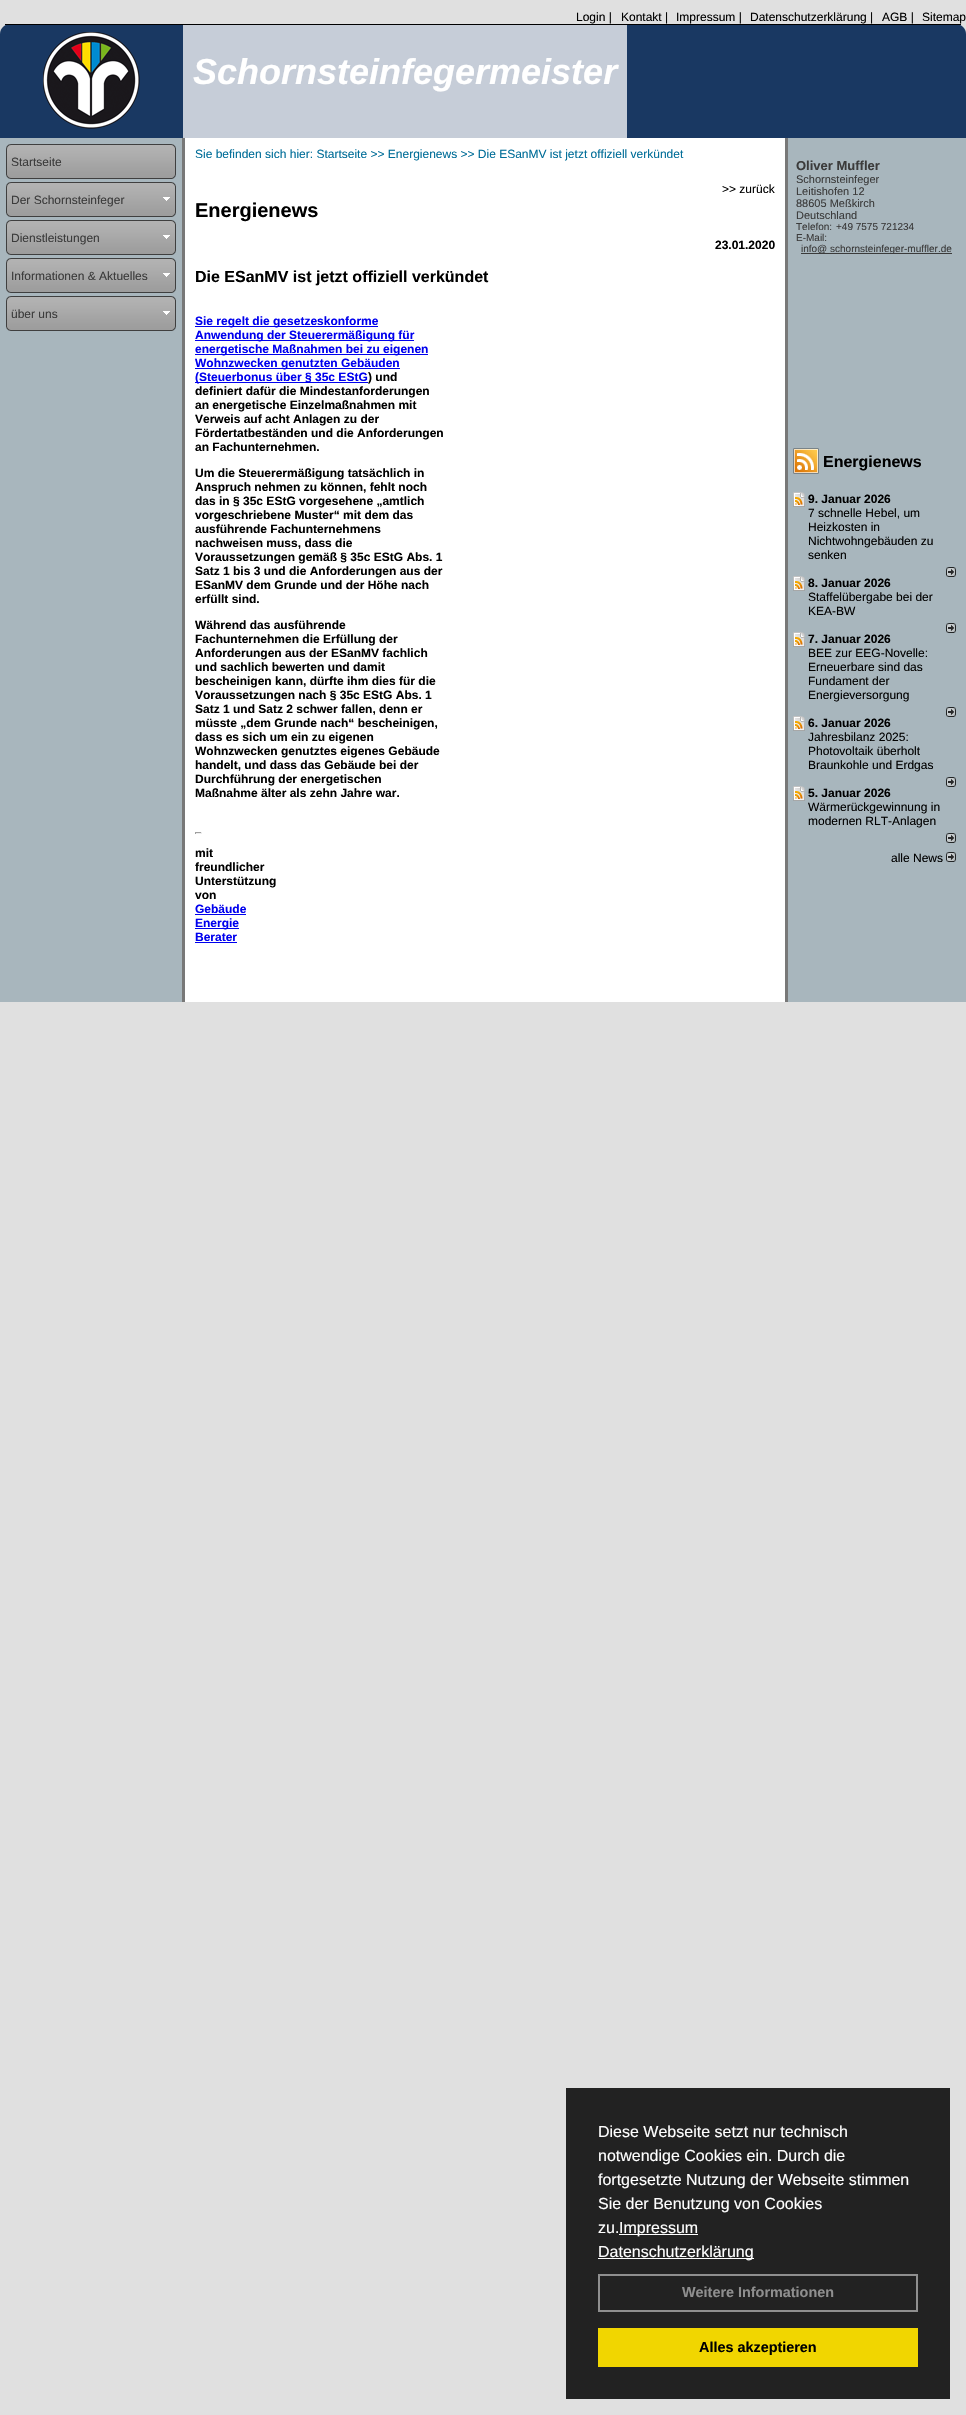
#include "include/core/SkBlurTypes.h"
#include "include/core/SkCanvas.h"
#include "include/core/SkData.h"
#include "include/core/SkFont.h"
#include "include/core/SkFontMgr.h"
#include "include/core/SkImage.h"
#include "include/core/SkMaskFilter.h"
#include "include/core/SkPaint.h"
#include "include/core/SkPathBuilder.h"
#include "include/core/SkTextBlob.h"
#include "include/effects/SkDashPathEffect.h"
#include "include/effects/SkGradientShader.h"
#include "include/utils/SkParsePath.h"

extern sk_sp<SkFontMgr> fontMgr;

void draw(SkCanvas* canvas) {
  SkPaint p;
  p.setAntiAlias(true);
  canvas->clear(SkColorSetRGB(224, 224, 224));
  p.setColor(SkColorSetRGB(25, 56, 98));
  canvas->drawPath(SkPathBuilder().moveTo(10, 24).lineTo(956, 24).cubicTo(961.5f, 24, 966, 28.5f, 966, 34).lineTo(966, 138).lineTo(0, 138).lineTo(0, 34).cubicTo(0, 28.5f, 4.5f, 24, 10, 24).close().detach(), p);
  p.setColor(SK_ColorBLACK);
  canvas->drawRect(SkRect::MakeLTRB(5, 24, 961, 25), p);
  canvas->drawImageRect(SkImages::DeferredFromEncodedData(SkData::MakeFromFileName("images/1.png")), SkRect::MakeLTRB(43, 32, 140, 129), SkSamplingOptions());
  p.setColor(SkColorSetRGB(198, 205, 216));
  canvas->drawRect(SkRect::MakeLTRB(183, 25, 627, 138), p);
  p.setColor(SkColorSetRGB(168, 182, 189));
  canvas->drawRect(SkRect::MakeLTRB(0, 138, 182, 1002), p);
  canvas->drawImageRect(SkImages::DeferredFromEncodedData(SkData::MakeFromFileName("images/2.png")), SkRect::MakeLTRB(6, 144, 176, 179), SkSamplingOptions());
  canvas->drawImageRect(SkImages::DeferredFromEncodedData(SkData::MakeFromFileName("images/2.png")), SkRect::MakeLTRB(6, 182, 176, 217), SkSamplingOptions());
  canvas->drawImageRect(SkImages::DeferredFromEncodedData(SkData::MakeFromFileName("images/3.png")), SkRect::MakeLTRB(163, 197, 170, 201), SkSamplingOptions());
  canvas->drawImageRect(SkImages::DeferredFromEncodedData(SkData::MakeFromFileName("images/2.png")), SkRect::MakeLTRB(6, 220, 176, 255), SkSamplingOptions());
  canvas->drawImageRect(SkImages::DeferredFromEncodedData(SkData::MakeFromFileName("images/3.png")), SkRect::MakeLTRB(163, 235, 170, 239), SkSamplingOptions());
  canvas->drawImageRect(SkImages::DeferredFromEncodedData(SkData::MakeFromFileName("images/2.png")), SkRect::MakeLTRB(6, 258, 176, 293), SkSamplingOptions());
  canvas->drawImageRect(SkImages::DeferredFromEncodedData(SkData::MakeFromFileName("images/3.png")), SkRect::MakeLTRB(163, 273, 170, 277), SkSamplingOptions());
  canvas->drawImageRect(SkImages::DeferredFromEncodedData(SkData::MakeFromFileName("images/2.png")), SkRect::MakeLTRB(6, 296, 176, 331), SkSamplingOptions());
  canvas->drawImageRect(SkImages::DeferredFromEncodedData(SkData::MakeFromFileName("images/3.png")), SkRect::MakeLTRB(163, 311, 170, 315), SkSamplingOptions());
  p.setColor(SkColorSetRGB(120, 120, 120));
  canvas->drawRect(SkRect::MakeLTRB(182, 138, 185, 1002), p);
  p.setColor(SK_ColorWHITE);
  canvas->drawRect(SkRect::MakeLTRB(185, 138, 785, 1002), p);
  p.setColor(SkColorSetRGB(0, 0, 238));
  canvas->drawRect(SkRect::MakeLTRB(195, 326, 378, 327), p);
  canvas->drawRect(SkRect::MakeLTRB(195, 340, 414, 341), p);
  canvas->drawRect(SkRect::MakeLTRB(195, 354, 428, 355), p);
  canvas->drawRect(SkRect::MakeLTRB(195, 368, 400, 369), p);
  canvas->drawRect(SkRect::MakeLTRB(195, 382, 368, 383), p);
  p.setColor(SkColorSetRGB(159, 159, 159));
  canvas->drawRect(SkRect::MakeLTRB(195, 832, 202, 833), p);
  p.setColor(SkColorSetRGB(238, 238, 238));
  canvas->drawRect(SkRect::MakeLTRB(201, 832, 202, 834), p);
  canvas->drawRect(SkRect::MakeLTRB(195, 833, 202, 834), p);
  p.setColor(SkColorSetRGB(159, 159, 159));
  canvas->drawRect(SkRect::MakeLTRB(195, 832, 196, 834), p);
  p.setColor(SkColorSetRGB(0, 0, 238));
  canvas->drawRect(SkRect::MakeLTRB(195, 914, 246, 915), p);
  canvas->drawRect(SkRect::MakeLTRB(195, 928, 239, 929), p);
  canvas->drawRect(SkRect::MakeLTRB(195, 942, 237, 943), p);
  p.setColor(SkColorSetRGB(120, 120, 120));
  canvas->drawRect(SkRect::MakeLTRB(785, 138, 788, 1002), p);
  p.setColor(SkColorSetRGB(168, 182, 189));
  canvas->drawRect(SkRect::MakeLTRB(788, 138, 966, 1002), p);
  canvas->drawImageRect(SkImages::DeferredFromEncodedData(SkData::MakeFromFileName("images/4.png")), SkRect::MakeLTRB(793, 448, 819, 474), SkSamplingOptions());
  canvas->drawImageRect(SkImages::DeferredFromEncodedData(SkData::MakeFromFileName("images/5.png")), SkRect::MakeLTRB(793, 492, 805, 507), SkSamplingOptions());
  canvas->drawImageRect(SkImages::DeferredFromEncodedData(SkData::MakeFromFileName("images/6.png")), SkRect::MakeLTRB(946, 567, 956, 577), SkSamplingOptions());
  canvas->drawImageRect(SkImages::DeferredFromEncodedData(SkData::MakeFromFileName("images/5.png")), SkRect::MakeLTRB(793, 576, 805, 591), SkSamplingOptions());
  canvas->drawImageRect(SkImages::DeferredFromEncodedData(SkData::MakeFromFileName("images/6.png")), SkRect::MakeLTRB(946, 623, 956, 633), SkSamplingOptions());
  canvas->drawImageRect(SkImages::DeferredFromEncodedData(SkData::MakeFromFileName("images/5.png")), SkRect::MakeLTRB(793, 632, 805, 647), SkSamplingOptions());
  canvas->drawImageRect(SkImages::DeferredFromEncodedData(SkData::MakeFromFileName("images/6.png")), SkRect::MakeLTRB(946, 707, 956, 717), SkSamplingOptions());
  canvas->drawImageRect(SkImages::DeferredFromEncodedData(SkData::MakeFromFileName("images/5.png")), SkRect::MakeLTRB(793, 716, 805, 731), SkSamplingOptions());
  canvas->drawImageRect(SkImages::DeferredFromEncodedData(SkData::MakeFromFileName("images/6.png")), SkRect::MakeLTRB(946, 777, 956, 787), SkSamplingOptions());
  canvas->drawImageRect(SkImages::DeferredFromEncodedData(SkData::MakeFromFileName("images/5.png")), SkRect::MakeLTRB(793, 786, 805, 801), SkSamplingOptions());
  canvas->drawImageRect(SkImages::DeferredFromEncodedData(SkData::MakeFromFileName("images/6.png")), SkRect::MakeLTRB(946, 833, 956, 843), SkSamplingOptions());
  canvas->drawImageRect(SkImages::DeferredFromEncodedData(SkData::MakeFromFileName("images/6.png")), SkRect::MakeLTRB(946, 852, 956, 862), SkSamplingOptions());
  p.setColor(SkColorSetRGB(59, 59, 59));
  canvas->drawRect(SkRect::MakeLTRB(801, 253, 952, 254), p);
  p.setColor(SkColorSetRGB(34, 34, 34));
  canvas->drawRect(SkRect::MakeLTRB(566, 2088, 950, 2399), p);
  p.setColor(SK_ColorWHITE);
  canvas->drawRect(SkRect::MakeLTRB(619, 2234, 698, 2235), p);
  canvas->drawRect(SkRect::MakeLTRB(598, 2258, 754, 2259), p);
  p.setStyle(SkPaint::kStroke_Style);
  p.setStrokeWidth(2);
  p.setColor(SkColorSetRGB(143, 143, 143));
  canvas->drawRect(SkRect::MakeLTRB(599, 2275, 917, 2311), p);
  p.setStyle(SkPaint::kFill_Style);
  p.setColor(SkColorSetRGB(241, 214, 0));
  canvas->drawRect(SkRect::MakeLTRB(598, 2328, 918, 2367), p);
  SkFont font1(fontMgr->matchFamilyStyle("Liberation Sans", SkFontStyle::Normal()), 12);
  font1.setSubpixel(true);
  p.setColor(SK_ColorBLACK);
  canvas->drawString("Login |", 576, 21, font1, p);
  canvas->drawString("Kontakt |", 621, 21, font1, p);
  canvas->drawString("Impressum |", 676, 21, font1, p);
  canvas->drawString("Datenschutzerklärung |", 750, 21, font1, p);
  canvas->drawString("AGB |", 882, 21, font1, p);
  canvas->drawString("Sitemap", 922, 21, font1, p);
  SkFont font2(fontMgr->matchFamilyStyle("Liberation Sans", SkFontStyle::BoldItalic()), 36);
  font2.setSubpixel(true);
  p.setColor(SK_ColorWHITE);
  canvas->drawString("Schornsteinfegermeister", 193, 84, font2, p);
  p.setColor(SkColorSetRGB(59, 59, 59));
  canvas->drawString("Startseite", 11, 166, font1, p);
  canvas->drawString("Der Schornsteinfeger", 11, 204, font1, p);
  canvas->drawString("Dienstleistungen", 11, 242, font1, p);
  canvas->drawString("Informationen & Aktuelles", 11, 280, font1, p);
  canvas->drawString("über uns", 11, 318, font1, p);
  p.setColor(SkColorSetRGB(0, 109, 152));
  canvas->drawString("Sie befinden sich hier: Startseite >> Energienews >> Die ESanMV ist jetzt offiziell verkündet", 195, 158, font1, p);
  p.setColor(SK_ColorBLACK);
  canvas->drawString(">> zurück", 722, 193, font1, p);
  SkFont font3(fontMgr->matchFamilyStyle("Liberation Sans", SkFontStyle::Bold()), 20);
  font3.setSubpixel(true);
  canvas->drawString("Energienews", 195, 217, font3, p);
  SkFont font4(fontMgr->matchFamilyStyle("Liberation Sans", SkFontStyle::Bold()), 12);
  font4.setSubpixel(true);
  canvas->drawString("23.01.2020", 715, 249, font4, p);
  SkFont font5(fontMgr->matchFamilyStyle("Liberation Sans", SkFontStyle::Bold()), 16);
  font5.setSubpixel(true);
  canvas->drawString("Die ESanMV ist jetzt offiziell verkündet", 195, 282, font5, p);
  p.setColor(SkColorSetRGB(0, 0, 238));
  canvas->drawString("Sie regelt die gesetzeskonforme", 195, 325, font4, p);
  canvas->drawString("Anwendung der Steuerermäßigung für", 195, 339, font4, p);
  canvas->drawString("energetische Maßnahmen bei zu eigenen", 195, 353, font4, p);
  canvas->drawString("Wohnzwecken genutzten Gebäuden", 195, 367, font4, p);
  canvas->drawString("(Steuerbonus über § 35c EStG", 195, 381, font4, p);
  p.setColor(SK_ColorBLACK);
  canvas->drawString(") und", 368, 381, font4, p);
  canvas->drawString("definiert dafür die Mindestanforderungen", 195, 395, font4, p);
  canvas->drawString("an energetische Einzelmaßnahmen mit", 195, 409, font4, p);
  canvas->drawString("Verweis auf acht Anlagen zu der", 195, 423, font4, p);
  canvas->drawString("Fördertatbeständen und die Anforderungen", 195, 437, font4, p);
  canvas->drawString("an Fachunternehmen.", 195, 451, font4, p);
  canvas->drawString("Um die Steuerermäßigung tatsächlich in", 195, 477, font4, p);
  canvas->drawString("Anspruch nehmen zu können, fehlt noch", 195, 491, font4, p);
  canvas->drawString("das in § 35c EStG vorgesehene „amtlich", 195, 505, font4, p);
  canvas->drawString("vorgeschriebene Muster“ mit dem das", 195, 519, font4, p);
  canvas->drawString("ausführende Fachunternehmens", 195, 533, font4, p);
  canvas->drawString("nachweisen muss, dass die", 195, 547, font4, p);
  canvas->drawString("Voraussetzungen gemäß § 35c EStG Abs. 1", 195, 561, font4, p);
  canvas->drawString("Satz 1 bis 3 und die Anforderungen aus der", 195, 575, font4, p);
  canvas->drawString("ESanMV dem Grunde und der Höhe nach", 195, 589, font4, p);
  canvas->drawString("erfüllt sind.", 195, 603, font4, p);
  canvas->drawString("Während das ausführende", 195, 629, font4, p);
  canvas->drawString("Fachunternehmen die Erfüllung der", 195, 643, font4, p);
  canvas->drawString("Anforderungen aus der ESanMV fachlich", 195, 657, font4, p);
  canvas->drawString("und sachlich bewerten und damit", 195, 671, font4, p);
  canvas->drawString("bescheinigen kann, dürfte ihm dies für die", 195, 685, font4, p);
  canvas->drawString("Voraussetzungen nach § 35c EStG Abs. 1", 195, 699, font4, p);
  canvas->drawString("Satz 1 und Satz 2 schwer fallen, denn er", 195, 713, font4, p);
  canvas->drawString("müsste „dem Grunde nach“ bescheinigen,", 195, 727, font4, p);
  canvas->drawString("dass es sich um ein zu eigenen", 195, 741, font4, p);
  canvas->drawString("Wohnzwecken genutztes eigenes Gebäude", 195, 755, font4, p);
  canvas->drawString("handelt, und dass das Gebäude bei der", 195, 769, font4, p);
  canvas->drawString("Durchführung der energetischen", 195, 783, font4, p);
  canvas->drawString("Maßnahme älter als zehn Jahre war.", 195, 797, font4, p);
  canvas->drawString("mit", 195, 857, font4, p);
  canvas->drawString("freundlicher", 195, 871, font4, p);
  canvas->drawString("Unterstützung", 195, 885, font4, p);
  canvas->drawString("von", 195, 899, font4, p);
  p.setColor(SkColorSetRGB(0, 0, 238));
  canvas->drawString("Gebäude", 195, 913, font4, p);
  canvas->drawString("Energie", 195, 927, font4, p);
  canvas->drawString("Berater", 195, 941, font4, p);
  p.setColor(SK_ColorBLACK);
  canvas->drawString("Energienews", 823, 467, font5, p);
  canvas->drawString("9. Januar 2026", 808, 503, font4, p);
  canvas->drawString("7 schnelle Hebel, um", 808, 517, font1, p);
  canvas->drawString("Heizkosten in", 808, 531, font1, p);
  canvas->drawString("Nichtwohngebäuden zu", 808, 545, font1, p);
  canvas->drawString("senken", 808, 559, font1, p);
  canvas->drawString("8. Januar 2026", 808, 587, font4, p);
  canvas->drawString("Staffelübergabe bei der", 808, 601, font1, p);
  canvas->drawString("KEA-BW", 808, 615, font1, p);
  canvas->drawString("7. Januar 2026", 808, 643, font4, p);
  canvas->drawString("BEE zur EEG-Novelle:", 808, 657, font1, p);
  canvas->drawString("Erneuerbare sind das", 808, 671, font1, p);
  canvas->drawString("Fundament der", 808, 685, font1, p);
  canvas->drawString("Energieversorgung", 808, 699, font1, p);
  canvas->drawString("6. Januar 2026", 808, 727, font4, p);
  canvas->drawString("Jahresbilanz 2025:", 808, 741, font1, p);
  canvas->drawString("Photovoltaik überholt", 808, 755, font1, p);
  canvas->drawString("Braunkohle und Erdgas", 808, 769, font1, p);
  canvas->drawString("5. Januar 2026", 808, 797, font4, p);
  canvas->drawString("Wärmerückgewinnung in", 808, 811, font1, p);
  canvas->drawString("modernen RLT-Anlagen", 808, 825, font1, p);
  canvas->drawString("alle News", 891, 862, font1, p);
  SkFont font6(fontMgr->matchFamilyStyle("Liberation Sans", SkFontStyle::Bold()), 13);
  font6.setSubpixel(true);
  p.setColor(SkColorSetRGB(59, 59, 59));
  canvas->drawString("Oliver Muffler", 796, 170, font6, p);
  SkFont font7(fontMgr->matchFamilyStyle("Liberation Sans", SkFontStyle::Normal()), 11);
  font7.setSubpixel(true);
  canvas->drawString("Schornsteinfeger", 796, 183, font7, p);
  canvas->drawString("Leitishofen 12", 796, 195, font7, p);
  canvas->drawString("88605 Meßkirch", 796, 207, font7, p);
  canvas->drawString("Deutschland", 796, 219, font7, p);
  SkFont font8(fontMgr->matchFamilyStyle("Liberation Sans", SkFontStyle::Normal()), 10);
  font8.setSubpixel(true);
  canvas->drawString("Telefon:", 796, 230, font8, p);
  canvas->drawString("+49 7575 721234", 836, 230, font8, p);
  canvas->drawString("E-Mail:", 796, 241, font8, p);
  canvas->drawString("info@ schornsteinfeger-muffler.de", 801, 252, font8, p);
  SkFont font9(fontMgr->matchFamilyStyle("Liberation Sans", SkFontStyle::Normal()), 16);
  font9.setSubpixel(true);
  p.setColor(SK_ColorWHITE);
  canvas->drawString("Diese Webseite setzt nur technisch", 598, 2137, font9, p);
  canvas->drawString("notwendige Cookies ein. Durch die", 598, 2161, font9, p);
  canvas->drawString("fortgesetzte Nutzung der Webseite stimmen", 598, 2185, font9, p);
  canvas->drawString("Sie der Benutzung von Cookies", 598, 2209, font9, p);
  canvas->drawString("zu.", 598, 2233, font9, p);
  canvas->drawString("Impressum", 619, 2233, font9, p);
  canvas->drawString("Datenschutzerklärung", 598, 2257, font9, p);
  SkFont font10(fontMgr->matchFamilyStyle("Liberation Sans", SkFontStyle::Bold()), 14.4f);
  font10.setSubpixel(true);
  p.setColor(SkColorSetRGB(143, 143, 143));
  canvas->drawString("Weitere Informationen", 682, 2297, font10, p);
  p.setColor(SK_ColorBLACK);
  canvas->drawString("Alles akzeptieren", 699, 2352, font10, p);
}
